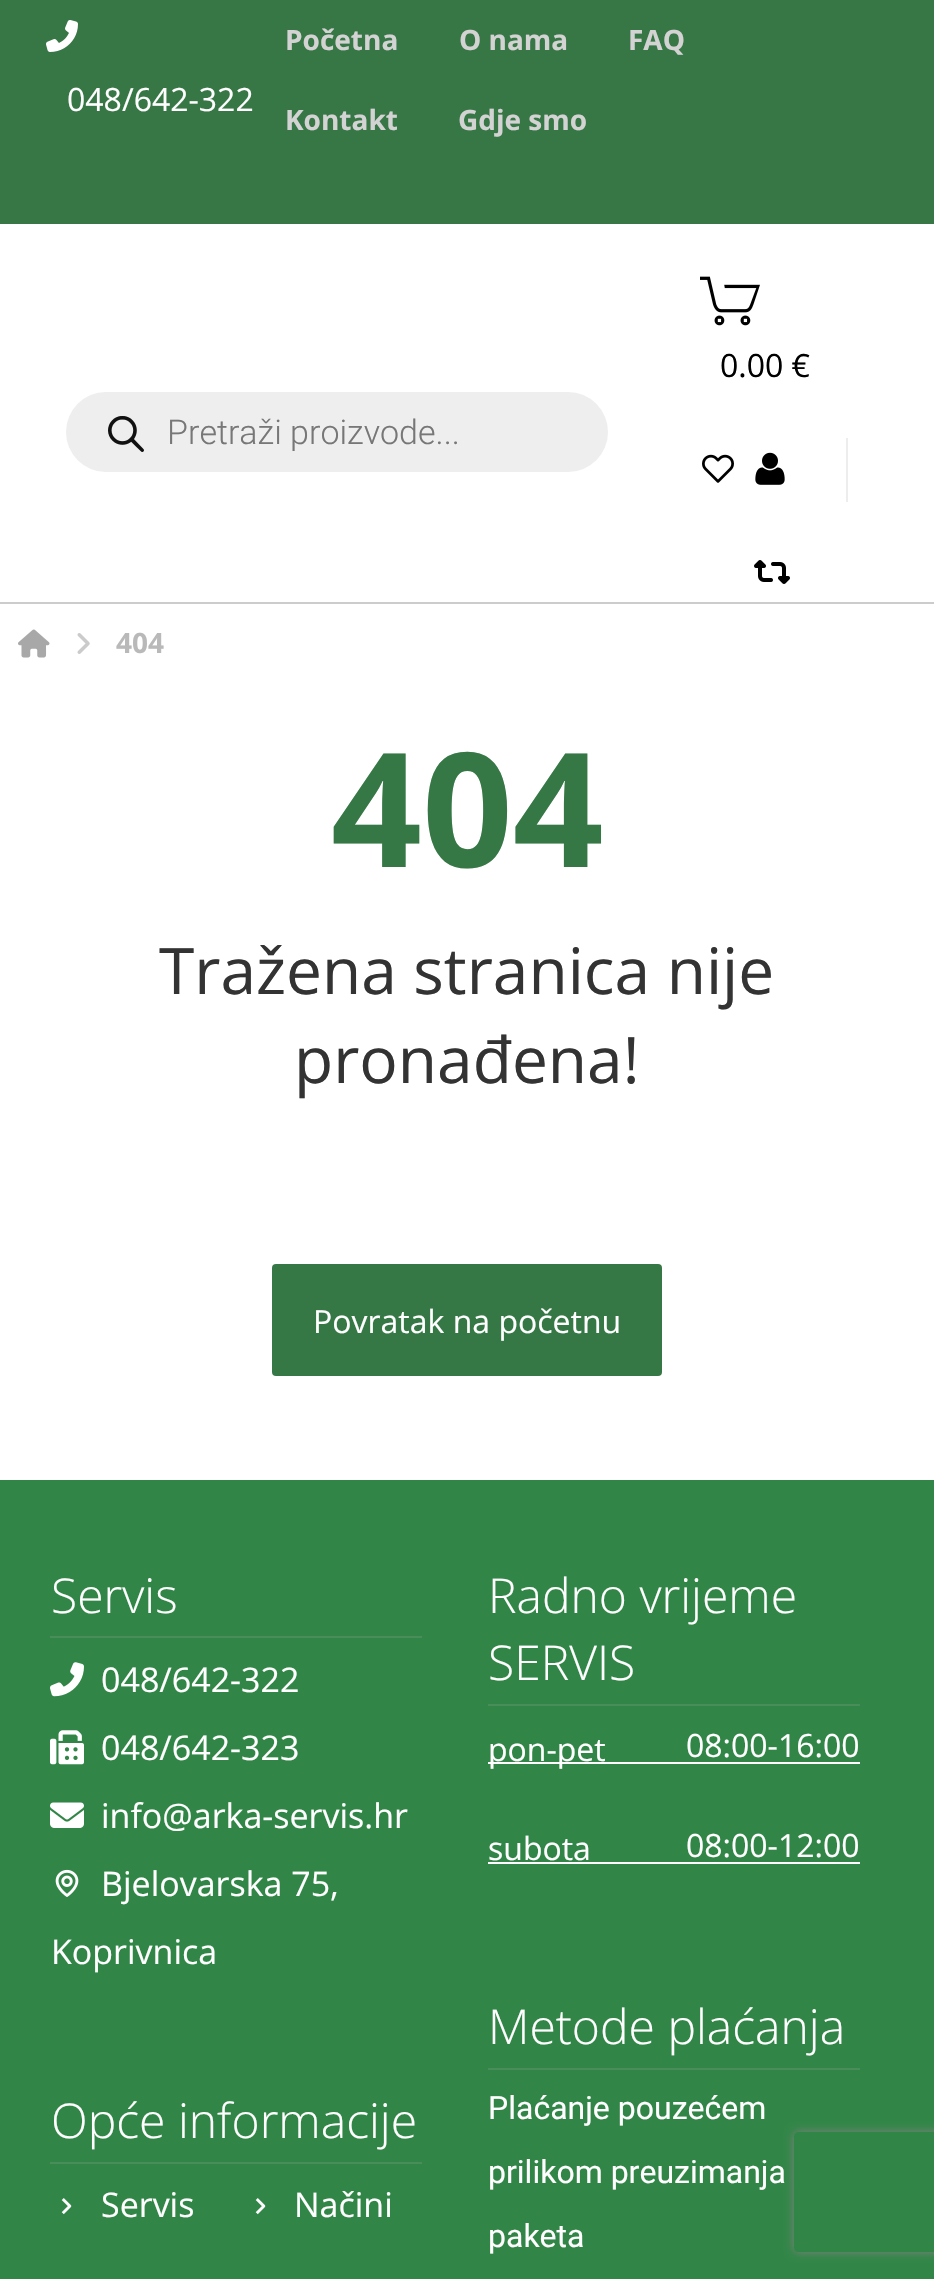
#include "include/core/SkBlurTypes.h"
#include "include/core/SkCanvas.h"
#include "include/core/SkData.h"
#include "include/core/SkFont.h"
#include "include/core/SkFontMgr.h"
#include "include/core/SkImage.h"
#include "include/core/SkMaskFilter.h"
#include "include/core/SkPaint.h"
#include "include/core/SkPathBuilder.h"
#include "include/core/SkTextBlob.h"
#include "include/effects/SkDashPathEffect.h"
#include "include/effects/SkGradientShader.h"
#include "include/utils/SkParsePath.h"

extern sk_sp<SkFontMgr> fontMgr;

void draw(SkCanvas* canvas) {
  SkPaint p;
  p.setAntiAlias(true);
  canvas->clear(SK_ColorWHITE);
  p.setColor(SkColorSetRGB(55, 118, 69));
  canvas->drawRect(SkRect::MakeLTRB(0, 0, 934, 224), p);
  canvas->drawImageRect(SkImages::DeferredFromEncodedData(SkData::MakeFromFileName("images/1.png")), SkRect::MakeLTRB(46, 20, 78, 52), SkSamplingOptions());
  p.setColor(SkColorSetRGB(204, 204, 204));
  canvas->drawRect(SkRect::MakeLTRB(0, 602, 934, 604), p);
  canvas->drawImageRect(SkImages::DeferredFromEncodedData(SkData::MakeFromFileName("images/2.png")), SkRect::MakeLTRB(700, 276, 760, 326), SkSamplingOptions());
  canvas->drawImageRect(SkImages::DeferredFromEncodedData(SkData::MakeFromFileName("images/3.png")), SkRect::MakeLTRB(702, 454, 734, 483), SkSamplingOptions());
  canvas->drawImageRect(SkImages::DeferredFromEncodedData(SkData::MakeFromFileName("images/4.png")), SkRect::MakeLTRB(755, 452, 785, 485), SkSamplingOptions());
  p.setColor(SkColorSetRGB(237, 237, 237));
  canvas->drawRect(SkRect::MakeLTRB(846, 438, 848, 502), p);
  canvas->drawImageRect(SkImages::DeferredFromEncodedData(SkData::MakeFromFileName("images/5.png")), SkRect::MakeLTRB(754, 560, 790, 584), SkSamplingOptions());
  p.setColor(SkColorSetRGB(238, 238, 238));
  canvas->drawRoundRect(SkRect::MakeLTRB(66, 392, 608, 472), 40, 40, p);
  canvas->drawImageRect(SkImages::DeferredFromEncodedData(SkData::MakeFromFileName("images/6.png")), SkRect::MakeLTRB(108, 416, 144, 452), SkSamplingOptions());
  canvas->drawImageRect(SkImages::DeferredFromEncodedData(SkData::MakeFromFileName("images/7.png")), SkRect::MakeLTRB(18, 629, 50, 658), SkSamplingOptions());
  canvas->drawImageRect(SkImages::DeferredFromEncodedData(SkData::MakeFromFileName("images/8.png")), SkRect::MakeLTRB(77, 633, 90, 654), SkSamplingOptions());
  p.setColor(SkColorSetRGB(54, 120, 69));
  canvas->drawRoundRect(SkRect::MakeLTRB(272, 1264, 662, 1376), 4, 4, p);
  p.setColor(SkColorSetRGB(49, 134, 71));
  canvas->drawRect(SkRect::MakeLTRB(0, 1480, 934, 2279), p);
  p.setColor(SkColorSetRGB(73, 141, 90));
  canvas->drawRect(SkRect::MakeLTRB(50, 1636, 422, 1638), p);
  canvas->drawImageRect(SkImages::DeferredFromEncodedData(SkData::MakeFromFileName("images/9.png")), SkRect::MakeLTRB(50, 1662, 84, 1697), SkSamplingOptions());
  canvas->drawImageRect(SkImages::DeferredFromEncodedData(SkData::MakeFromFileName("images/10.png")), SkRect::MakeLTRB(50, 1730, 84, 1765), SkSamplingOptions());
  canvas->drawImageRect(SkImages::DeferredFromEncodedData(SkData::MakeFromFileName("images/11.png")), SkRect::MakeLTRB(50, 1802, 84, 1828), SkSamplingOptions());
  canvas->drawImageRect(SkImages::DeferredFromEncodedData(SkData::MakeFromFileName("images/12.png")), SkRect::MakeLTRB(55, 1869, 79, 1897), SkSamplingOptions());
  canvas->drawRect(SkRect::MakeLTRB(50, 2162, 422, 2164), p);
  canvas->drawImageRect(SkImages::DeferredFromEncodedData(SkData::MakeFromFileName("images/13.png")), SkRect::MakeLTRB(61, 2198, 72, 2215), SkSamplingOptions());
  canvas->drawImageRect(SkImages::DeferredFromEncodedData(SkData::MakeFromFileName("images/13.png")), SkRect::MakeLTRB(255, 2198, 266, 2215), SkSamplingOptions());
  canvas->drawRect(SkRect::MakeLTRB(488, 1704, 860, 1706), p);
  p.setColor(SK_ColorWHITE);
  canvas->drawRect(SkRect::MakeLTRB(488, 1762, 860, 1764), p);
  canvas->drawRect(SkRect::MakeLTRB(488, 1862, 860, 1864), p);
  p.setColor(SkColorSetRGB(73, 141, 90));
  canvas->drawRect(SkRect::MakeLTRB(488, 2068, 860, 2070), p);
  canvas->save();
  canvas->clipPath(SkPathBuilder(SkPathFillType::kEvenOdd).moveTo(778, 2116).lineTo(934, 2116).lineTo(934, 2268).lineTo(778, 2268).close().moveTo(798, 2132).lineTo(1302, 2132).cubicTo(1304, 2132, 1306, 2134, 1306, 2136).lineTo(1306, 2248).cubicTo(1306, 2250, 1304, 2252, 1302, 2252).lineTo(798, 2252).cubicTo(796, 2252, 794, 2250, 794, 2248).lineTo(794, 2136).cubicTo(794, 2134, 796, 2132, 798, 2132).close().detach(), true);
  p.setColor(SkColorSetRGB(128, 128, 128));
  p.setMaskFilter(SkMaskFilter::MakeBlur(kNormal_SkBlurStyle, 5));
  canvas->drawRoundRect(SkRect::MakeLTRB(794, 2132, 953, 2252), 4, 4, p);
  p.setMaskFilter(nullptr);
  canvas->restore();
  SkFont font1(fontMgr->matchFamilyStyle("Open Sans", SkFontStyle::Normal()), 32);
  font1.setSubpixel(true);
  p.setColor(SK_ColorWHITE);
  canvas->drawString("048/642-322", 67, 111, font1, p);
  SkFont font2(fontMgr->matchFamilyStyle("Open Sans", SkFontStyle::Bold()), 28);
  font2.setSubpixel(true);
  p.setColor(SkColorSetRGB(211, 211, 211));
  canvas->drawString("Početna", 285, 50, font2, p);
  canvas->drawString("O nama", 459, 50, font2, p);
  canvas->drawString("FAQ", 628, 50, font2, p);
  canvas->drawString("Kontakt", 285, 130, font2, p);
  canvas->drawString("Gdje smo", 458, 130, font2, p);
  p.setColor(SK_ColorBLACK);
  canvas->drawString("0.00 €", 720, 377, font1, p);
  SkFont font3(fontMgr->matchFamilyStyle("Roboto", SkFontStyle(300, SkFontStyle::kNormal_Width, SkFontStyle::kUpright_Slant)), 34);
  font3.setSubpixel(true);
  p.setColor(SkColorSetRGB(119, 119, 119));
  canvas->drawString("Pretraži proizvode...", 167, 444, font3, p);
  p.setColor(SkColorSetRGB(185, 185, 185));
  canvas->drawString("404", 116, 653, font2, p);
  SkFont font4(fontMgr->matchFamilyStyle("Open Sans", SkFontStyle::Bold()), 159);
  font4.setSubpixel(true);
  p.setColor(SkColorSetRGB(54, 120, 69));
  canvas->drawString("404", 331, 867, font4, p);
  SkFont font5(fontMgr->matchFamilyStyle("Open Sans", SkFontStyle::Normal()), 64);
  font5.setSubpixel(true);
  p.setColor(SkColorSetRGB(51, 51, 51));
  canvas->drawString("Tražena stranica nije", 159, 994, font5, p);
  canvas->drawString("pronađena!", 294, 1083, font5, p);
  p.setColor(SK_ColorWHITE);
  canvas->drawString("Povratak na početnu", 313, 1333, font1, p);
  SkFont font6(fontMgr->matchFamilyStyle("Open Sans", SkFontStyle(300, SkFontStyle::kNormal_Width, SkFontStyle::kUpright_Slant)), 48);
  font6.setSubpixel(true);
  canvas->drawString("Servis", 51, 1613, font6, p);
  SkFont font7(fontMgr->matchFamilyStyle("Open Sans", SkFontStyle::Normal()), 34);
  font7.setSubpixel(true);
  canvas->drawString("048/642-322", 101, 1692, font7, p);
  canvas->drawString("048/642-323", 101, 1760, font7, p);
  canvas->drawString("info@arka-servis.hr", 101, 1828, font7, p);
  canvas->drawString("Bjelovarska 75,", 101, 1896, font7, p);
  canvas->drawString("Koprivnica", 51, 1964, font7, p);
  canvas->drawString("Opće informacije", 51, 2138, font6, p);
  canvas->drawString("Servis", 101, 2217, font7, p);
  canvas->drawString("Načini", 294, 2217, font7, p);
  canvas->drawString("Radno vrijeme", 488, 1613, font6, p);
  canvas->drawString("SERVIS", 488, 1680, font6, p);
  canvas->drawString("pon-pet", 488, 1761, font1, p);
  canvas->drawString("08:00-16:00", 686, 1757, font1, p);
  canvas->drawString("subota", 488, 1860, font1, p);
  canvas->drawString("08:00-12:00", 686, 1857, font1, p);
  canvas->drawString("Metode plaćanja", 488, 2044, font6, p);
  SkFont font8(fontMgr->matchFamilyStyle("Roboto", SkFontStyle::Normal()), 32);
  font8.setSubpixel(true);
  canvas->drawString("Plaćanje pouzećem", 488, 2119, font8, p);
  canvas->drawString("prilikom preuzimanja", 488, 2183, font8, p);
  canvas->drawString("paketa", 488, 2247, font8, p);
}
